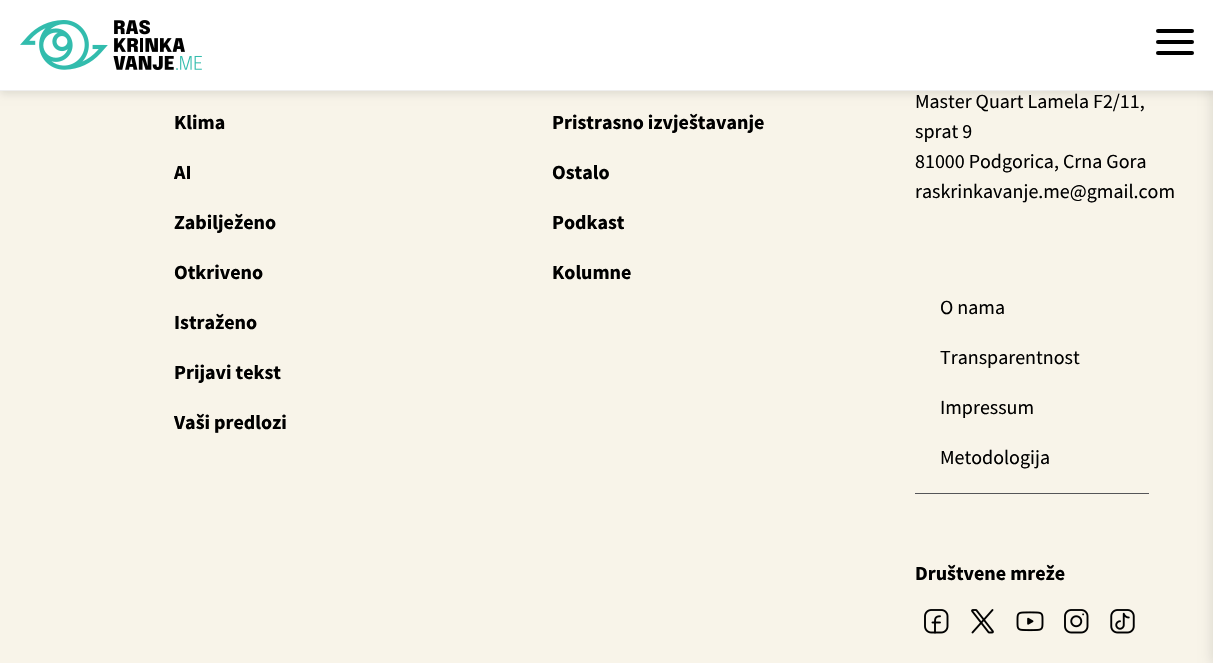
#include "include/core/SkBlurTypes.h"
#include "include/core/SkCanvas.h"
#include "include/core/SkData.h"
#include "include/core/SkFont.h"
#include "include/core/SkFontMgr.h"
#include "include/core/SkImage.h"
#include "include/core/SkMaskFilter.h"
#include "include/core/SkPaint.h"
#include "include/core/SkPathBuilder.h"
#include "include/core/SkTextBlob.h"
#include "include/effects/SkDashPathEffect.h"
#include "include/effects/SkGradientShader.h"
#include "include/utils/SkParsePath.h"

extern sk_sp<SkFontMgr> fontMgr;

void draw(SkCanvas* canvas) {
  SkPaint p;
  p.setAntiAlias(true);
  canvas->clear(SkColorSetRGB(248, 244, 233));
  p.setColor(SkColorSetARGB(26, 0, 0, 0));
  p.setMaskFilter(SkMaskFilter::MakeBlur(kNormal_SkBlurStyle, 4));
  canvas->drawRect(SkRect::MakeLTRB(0, 3, 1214, 94), p);
  p.setMaskFilter(nullptr);
  p.setMaskFilter(SkMaskFilter::MakeBlur(kNormal_SkBlurStyle, 6));
  canvas->drawRect(SkRect::MakeLTRB(1211, 0, 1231, 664), p);
  p.setMaskFilter(nullptr);
  p.setColor(SK_ColorWHITE);
  canvas->drawRect(SkRect::MakeLTRB(0, 0, 1213, 90), p);
  p.setColor(SkColorSetRGB(238, 238, 238));
  canvas->drawRect(SkRect::MakeLTRB(0, 90, 1213, 91), p);
  canvas->drawImageRect(SkImages::DeferredFromEncodedData(SkData::MakeFromFileName("images/1.png")), SkRect::MakeLTRB(20, 20, 202, 70), SkSamplingOptions());
  p.setColor(SK_ColorBLACK);
  canvas->drawRoundRect(SkRect::MakeLTRB(1156, 29, 1194, 33), 2, 2, p);
  canvas->drawRoundRect(SkRect::MakeLTRB(1156, 40, 1194, 44), 2, 2, p);
  canvas->drawRoundRect(SkRect::MakeLTRB(1156, 51, 1194, 55), 2, 2, p);
  p.setColor(SkColorSetRGB(85, 85, 88));
  canvas->drawRect(SkRect::MakeLTRB(915, 493, 1149, 494), p);
  canvas->drawImageRect(SkImages::DeferredFromEncodedData(SkData::MakeFromFileName("images/2.png")), SkRect::MakeLTRB(924, 609, 949, 634), SkSamplingOptions());
  canvas->drawImageRect(SkImages::DeferredFromEncodedData(SkData::MakeFromFileName("images/3.png")), SkRect::MakeLTRB(971, 609, 994, 634), SkSamplingOptions());
  canvas->drawImageRect(SkImages::DeferredFromEncodedData(SkData::MakeFromFileName("images/4.png")), SkRect::MakeLTRB(1016, 611, 1044, 632), SkSamplingOptions());
  canvas->drawImageRect(SkImages::DeferredFromEncodedData(SkData::MakeFromFileName("images/5.png")), SkRect::MakeLTRB(1064, 609, 1089, 634), SkSamplingOptions());
  canvas->drawImageRect(SkImages::DeferredFromEncodedData(SkData::MakeFromFileName("images/6.png")), SkRect::MakeLTRB(1110, 609, 1135, 634), SkSamplingOptions());
  SkFont font1(fontMgr->matchFamilyStyle("Source Sans Pro", SkFontStyle::Bold()), 20);
  font1.setSubpixel(true);
  p.setColor(SK_ColorBLACK);
  canvas->drawString("Klima", 174, 129, font1, p);
  canvas->drawString("AI", 174, 179, font1, p);
  canvas->drawString("Pristrasno izvještavanje", 552, 129, font1, p);
  canvas->drawString("Ostalo", 552, 179, font1, p);
  canvas->drawString("Zabilježeno", 174, 229, font1, p);
  canvas->drawString("Otkriveno", 174, 279, font1, p);
  canvas->drawString("Istraženo", 174, 329, font1, p);
  canvas->drawString("Prijavi tekst", 174, 379, font1, p);
  canvas->drawString("Vaši predlozi", 174, 429, font1, p);
  canvas->drawString("Podkast", 552, 229, font1, p);
  canvas->drawString("Kolumne", 552, 279, font1, p);
  SkFont font2(fontMgr->matchFamilyStyle("Source Sans Pro", SkFontStyle::Normal()), 20);
  font2.setSubpixel(true);
  canvas->drawString("Master Quart Lamela F2/11,", 915, 108, font2, p);
  canvas->drawString("sprat 9", 915, 138, font2, p);
  canvas->drawString("81000 Podgorica, Crna Gora", 915, 168, font2, p);
  canvas->drawString("raskrinkavanje.me@gmail.com", 915, 198, font2, p);
  canvas->drawString("O nama", 940, 314, font2, p);
  canvas->drawString("Transparentnost", 940, 364, font2, p);
  canvas->drawString("Impressum", 940, 414, font2, p);
  canvas->drawString("Metodologija", 940, 464, font2, p);
  canvas->drawString("Društvene mreže", 915, 580, font1, p);
}
